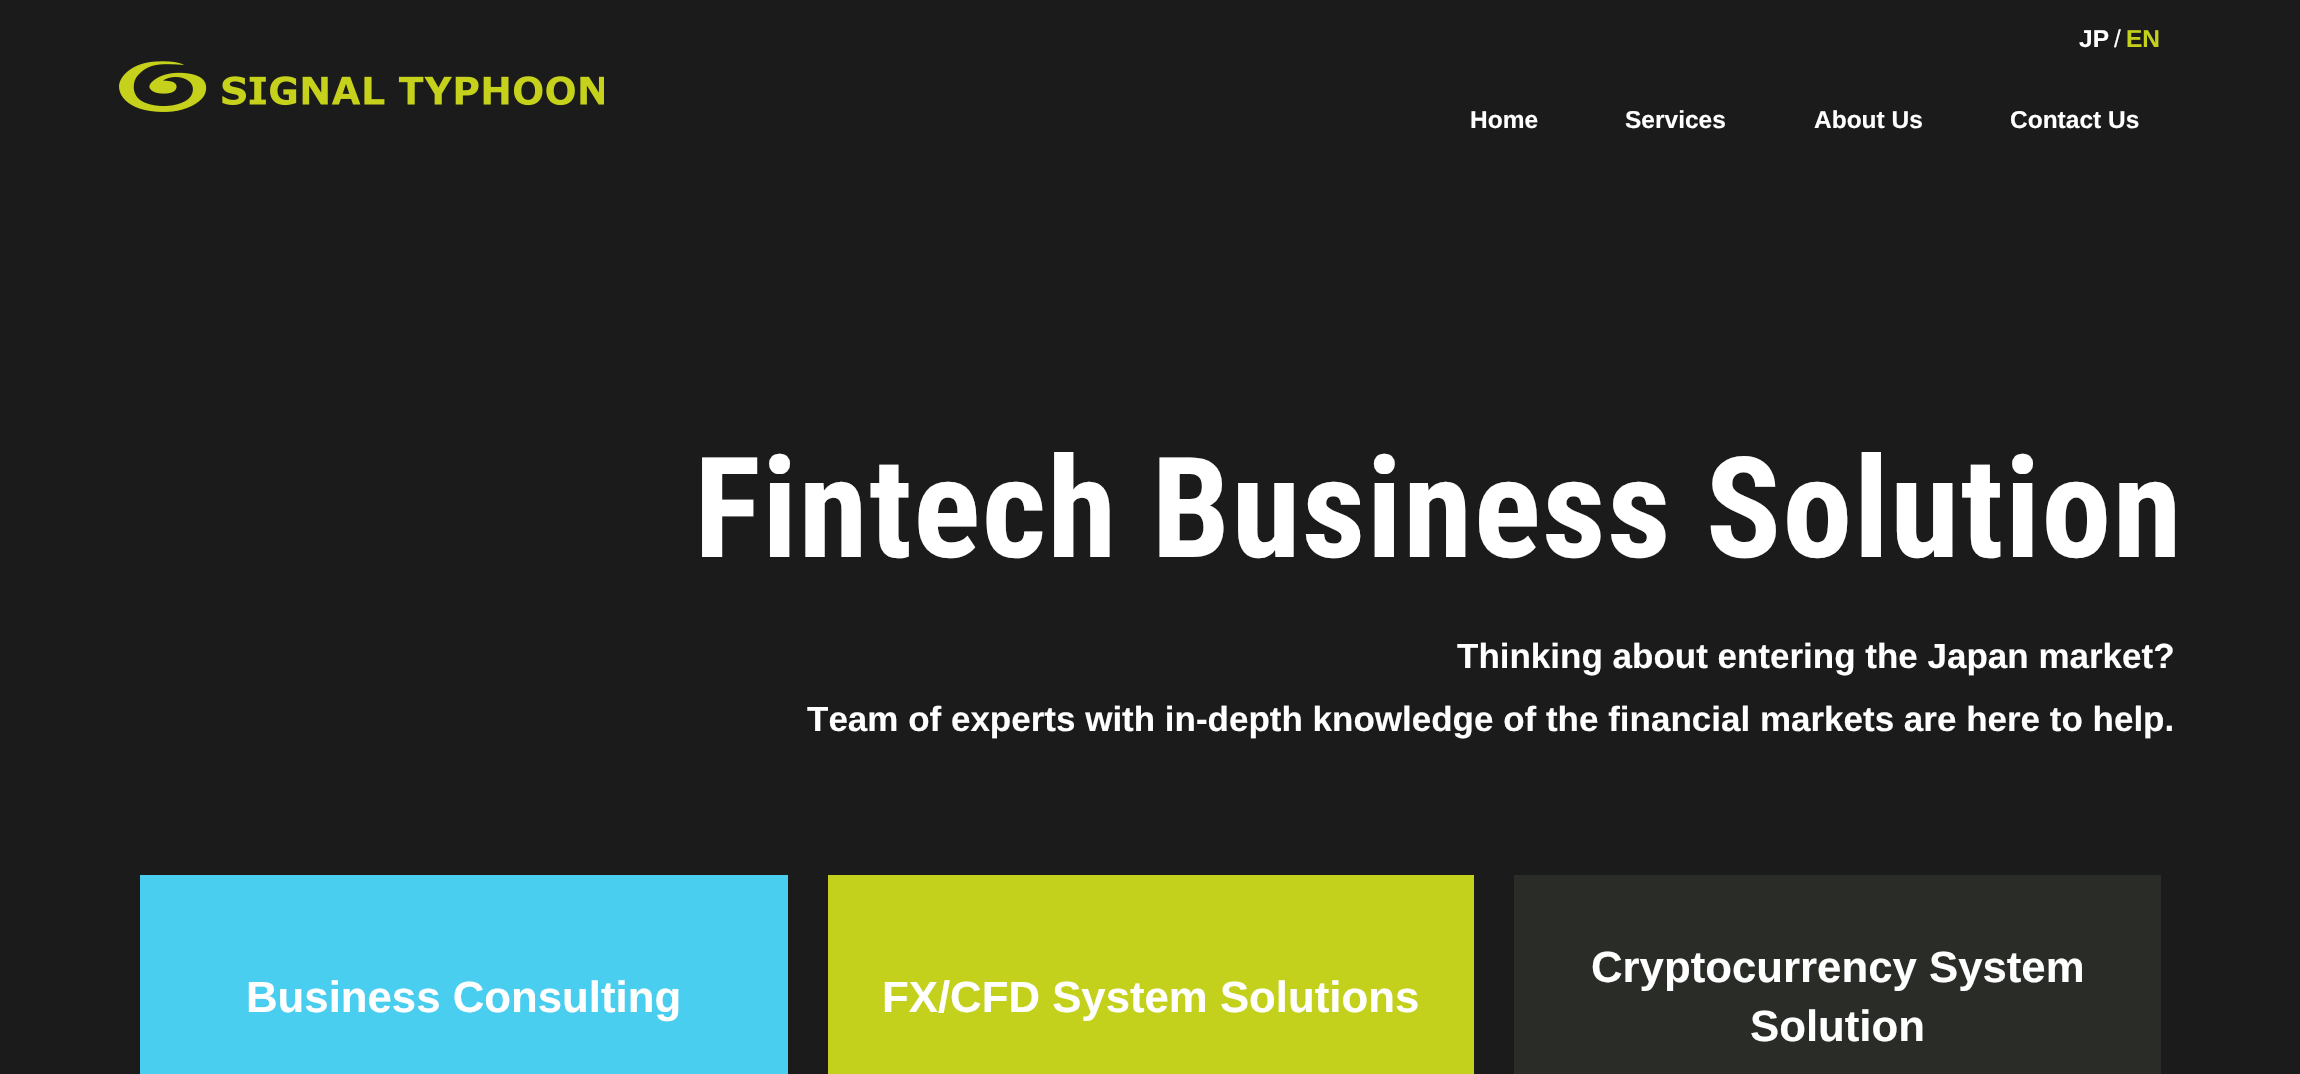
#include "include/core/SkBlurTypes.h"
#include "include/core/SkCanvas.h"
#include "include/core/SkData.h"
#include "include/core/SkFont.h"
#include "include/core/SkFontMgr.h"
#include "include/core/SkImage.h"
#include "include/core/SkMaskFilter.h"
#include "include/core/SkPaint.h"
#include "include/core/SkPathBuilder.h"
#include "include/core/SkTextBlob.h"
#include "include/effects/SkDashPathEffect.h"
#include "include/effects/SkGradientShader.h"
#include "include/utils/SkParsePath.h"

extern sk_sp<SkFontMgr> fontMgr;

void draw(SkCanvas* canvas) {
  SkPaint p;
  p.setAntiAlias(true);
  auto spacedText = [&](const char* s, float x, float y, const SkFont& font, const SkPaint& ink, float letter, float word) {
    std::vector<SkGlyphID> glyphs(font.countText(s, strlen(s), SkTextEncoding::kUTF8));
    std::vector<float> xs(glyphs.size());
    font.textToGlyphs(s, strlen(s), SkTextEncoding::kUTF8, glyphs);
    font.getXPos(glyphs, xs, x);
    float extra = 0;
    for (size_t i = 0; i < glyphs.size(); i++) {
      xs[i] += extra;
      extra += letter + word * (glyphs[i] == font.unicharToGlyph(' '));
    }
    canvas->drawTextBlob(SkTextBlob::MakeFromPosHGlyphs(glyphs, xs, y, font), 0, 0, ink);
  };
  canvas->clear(SkColorSetRGB(27, 27, 27));
  canvas->drawImageRect(SkImages::DeferredFromEncodedData(SkData::MakeFromFileName("images/1.png")), SkRect::MakeLTRB(119, 61, 604, 112), SkSamplingOptions());
  p.setColor(SkColorSetRGB(74, 206, 239));
  canvas->drawRect(SkRect::MakeLTRB(140, 875, 788, 1074), p);
  p.setColor(SkColorSetRGB(196, 209, 28));
  canvas->drawRect(SkRect::MakeLTRB(828, 875, 1474, 1074), p);
  p.setColor(SkColorSetRGB(42, 45, 39));
  canvas->drawRect(SkRect::MakeLTRB(1514, 875, 2161, 1074), p);
  SkFont font1(fontMgr->matchFamilyStyle("Liberation Sans", SkFontStyle::Bold()), 24.5f);
  font1.setSubpixel(true);
  p.setColor(SK_ColorWHITE);
  canvas->drawString("JP", 2079, 47, font1, p);
  SkFont font2(fontMgr->matchFamilyStyle("Liberation Sans", SkFontStyle::Normal()), 24.5f);
  font2.setSubpixel(true);
  canvas->drawString("/", 2114, 47, font2, p);
  p.setColor(SkColorSetRGB(196, 209, 28));
  canvas->drawString("EN", 2126, 47, font1, p);
  p.setColor(SK_ColorWHITE);
  canvas->drawString("Home", 1470, 128, font1, p);
  canvas->drawString("Services", 1625, 128, font1, p);
  canvas->drawString("About Us", 1814, 128, font1, p);
  canvas->drawString("Contact Us", 2010, 128, font1, p);
  SkFont font3(fontMgr->matchFamilyStyle("Roboto Condensed", SkFontStyle::Bold()), 140);
  font3.setSubpixel(true);
  spacedText("Fintech Business Solution", 694, 557, font3, p, 1.4f, 0);
  SkFont font4(fontMgr->matchFamilyStyle("Liberation Sans", SkFontStyle::Bold()), 35);
  font4.setSubpixel(true);
  canvas->drawString("Thinking about entering the Japan market?", 1457, 668, font4, p);
  canvas->drawString("Team of experts with in-depth knowledge of the financial markets are here to help.", 807, 731, font4, p);
  SkFont font5(fontMgr->matchFamilyStyle("Liberation Sans", SkFontStyle::Bold()), 43.75f);
  font5.setSubpixel(true);
  canvas->drawString("Business Consulting", 246, 1012, font5, p);
  canvas->drawString("FX/CFD System Solutions", 882, 1012, font5, p);
  canvas->drawString("Cryptocurrency System", 1591, 982, font5, p);
  canvas->drawString("Solution", 1750, 1041, font5, p);
}
